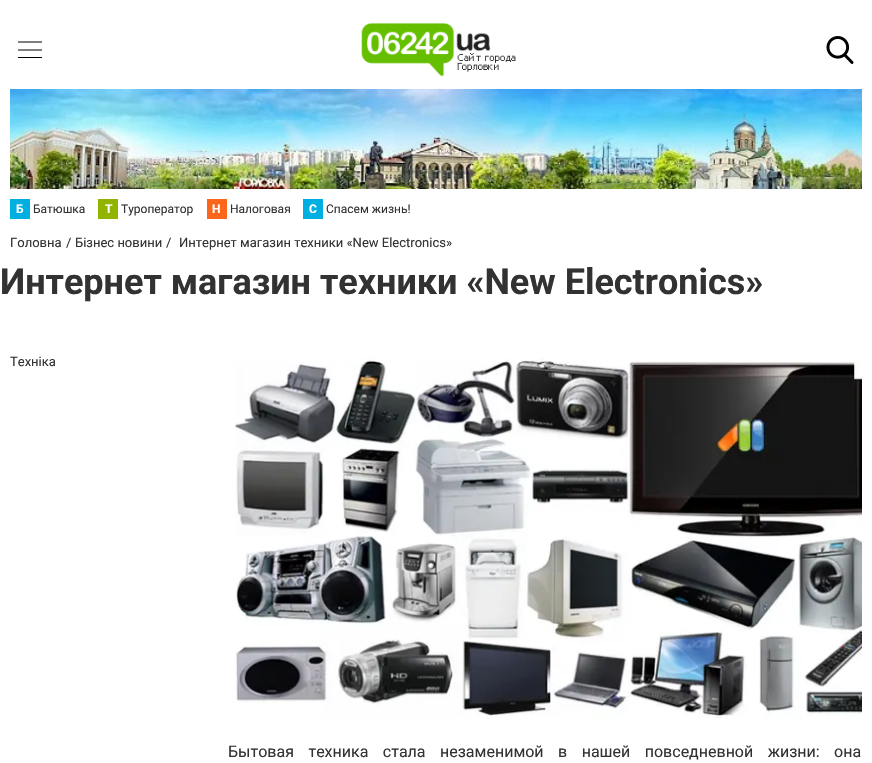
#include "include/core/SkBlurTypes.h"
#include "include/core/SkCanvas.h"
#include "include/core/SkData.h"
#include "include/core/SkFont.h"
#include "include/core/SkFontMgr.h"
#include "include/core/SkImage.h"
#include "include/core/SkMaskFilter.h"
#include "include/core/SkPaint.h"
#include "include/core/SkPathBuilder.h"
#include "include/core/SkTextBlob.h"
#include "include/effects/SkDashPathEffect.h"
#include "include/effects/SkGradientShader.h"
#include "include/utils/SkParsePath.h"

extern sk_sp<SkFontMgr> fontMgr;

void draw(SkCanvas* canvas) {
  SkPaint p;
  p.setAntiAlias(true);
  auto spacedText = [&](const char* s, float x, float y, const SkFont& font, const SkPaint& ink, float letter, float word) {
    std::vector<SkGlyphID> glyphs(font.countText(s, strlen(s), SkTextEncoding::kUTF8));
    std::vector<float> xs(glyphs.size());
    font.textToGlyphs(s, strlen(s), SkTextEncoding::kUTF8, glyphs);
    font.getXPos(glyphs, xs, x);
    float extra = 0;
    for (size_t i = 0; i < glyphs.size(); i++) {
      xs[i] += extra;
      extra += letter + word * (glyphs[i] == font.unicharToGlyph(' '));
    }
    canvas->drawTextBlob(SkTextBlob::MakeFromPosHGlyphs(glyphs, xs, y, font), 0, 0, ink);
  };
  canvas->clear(SK_ColorWHITE);
  p.setStyle(SkPaint::kStroke_Style);
  p.setStrokeWidth(1.2f);
  p.setColor(SK_ColorBLACK);
  canvas->drawPath(SkPathBuilder().moveTo(18, 50).lineTo(42, 50).moveTo(18, 42).lineTo(42, 42).detach(), p);
  p.setStyle(SkPaint::kFill_Style);
  canvas->drawRect(SkRect::MakeLTRB(18, 57, 42, 58), p);
  canvas->drawImageRect(SkImages::DeferredFromEncodedData(SkData::MakeFromFileName("images/1.png")), SkRect::MakeLTRB(361, 22, 516, 77), SkSamplingOptions());
  canvas->drawImageRect(SkImages::DeferredFromEncodedData(SkData::MakeFromFileName("images/2.png")), SkRect::MakeLTRB(826, 36, 854, 64), SkSamplingOptions());
  canvas->drawImageRect(SkImages::DeferredFromEncodedData(SkData::MakeFromFileName("images/3.png")), SkRect::MakeLTRB(10, 89, 862, 189), SkSamplingOptions());
  p.setColor(SkColorSetRGB(0, 175, 225));
  canvas->drawRect(SkRect::MakeLTRB(10, 199, 30, 219), p);
  p.setColor(SkColorSetRGB(144, 180, 0));
  canvas->drawRect(SkRect::MakeLTRB(98, 199, 118, 219), p);
  p.setColor(SkColorSetRGB(251, 102, 28));
  canvas->drawRect(SkRect::MakeLTRB(207, 199, 227, 219), p);
  p.setColor(SkColorSetRGB(0, 175, 225));
  canvas->drawRect(SkRect::MakeLTRB(303, 199, 323, 219), p);
  canvas->drawImageRect(SkImages::DeferredFromEncodedData(SkData::MakeFromFileName("images/4.png")), SkRect::MakeLTRB(233, 358, 862, 718), SkSamplingOptions());
  SkFont font1(fontMgr->matchFamilyStyle("Roboto", SkFontStyle::Bold()), 12);
  font1.setSubpixel(true);
  p.setColor(SK_ColorWHITE);
  canvas->drawString("Б", 16, 213, font1, p);
  SkFont font2(fontMgr->matchFamilyStyle("Roboto", SkFontStyle::Normal()), 12);
  font2.setSubpixel(true);
  p.setColor(SkColorSetRGB(50, 50, 50));
  canvas->drawString("Батюшка", 33, 213, font2, p);
  p.setColor(SK_ColorWHITE);
  canvas->drawString("Т", 105, 213, font1, p);
  p.setColor(SkColorSetRGB(50, 50, 50));
  canvas->drawString("Туроператор", 121, 213, font2, p);
  p.setColor(SK_ColorWHITE);
  canvas->drawString("Н", 212, 213, font1, p);
  p.setColor(SkColorSetRGB(50, 50, 50));
  canvas->drawString("Налоговая", 230, 213, font2, p);
  p.setColor(SK_ColorWHITE);
  canvas->drawString("С", 309, 213, font1, p);
  p.setColor(SkColorSetRGB(50, 50, 50));
  canvas->drawString("Спасем жизнь!", 326, 213, font2, p);
  SkFont font3(fontMgr->matchFamilyStyle("Roboto", SkFontStyle::Normal()), 13);
  font3.setSubpixel(true);
  canvas->drawString("Головна", 10, 247, font3, p);
  canvas->drawString("/", 66, 247, font3, p);
  canvas->drawString("Бізнес новини", 75, 247, font3, p);
  canvas->drawString("/", 166, 247, font3, p);
  canvas->drawString("Интернет магазин техники «New Electronics»", 179, 247, font3, p);
  SkFont font4(fontMgr->matchFamilyStyle("Roboto", SkFontStyle::Bold()), 36);
  font4.setSubpixel(true);
  canvas->drawString("Интернет магазин техники «New Electronics»", 0, 294, font4, p);
  canvas->drawString("Техніка", 10, 366, font3, p);
  SkFont font5(fontMgr->matchFamilyStyle("Roboto", SkFontStyle::Normal()), 16);
  font5.setSubpixel(true);
  spacedText("Бытовая техника стала незаменимой в нашей повседневной жизни: она", 228, 757, font5, p, 0, 10.5f);
}
